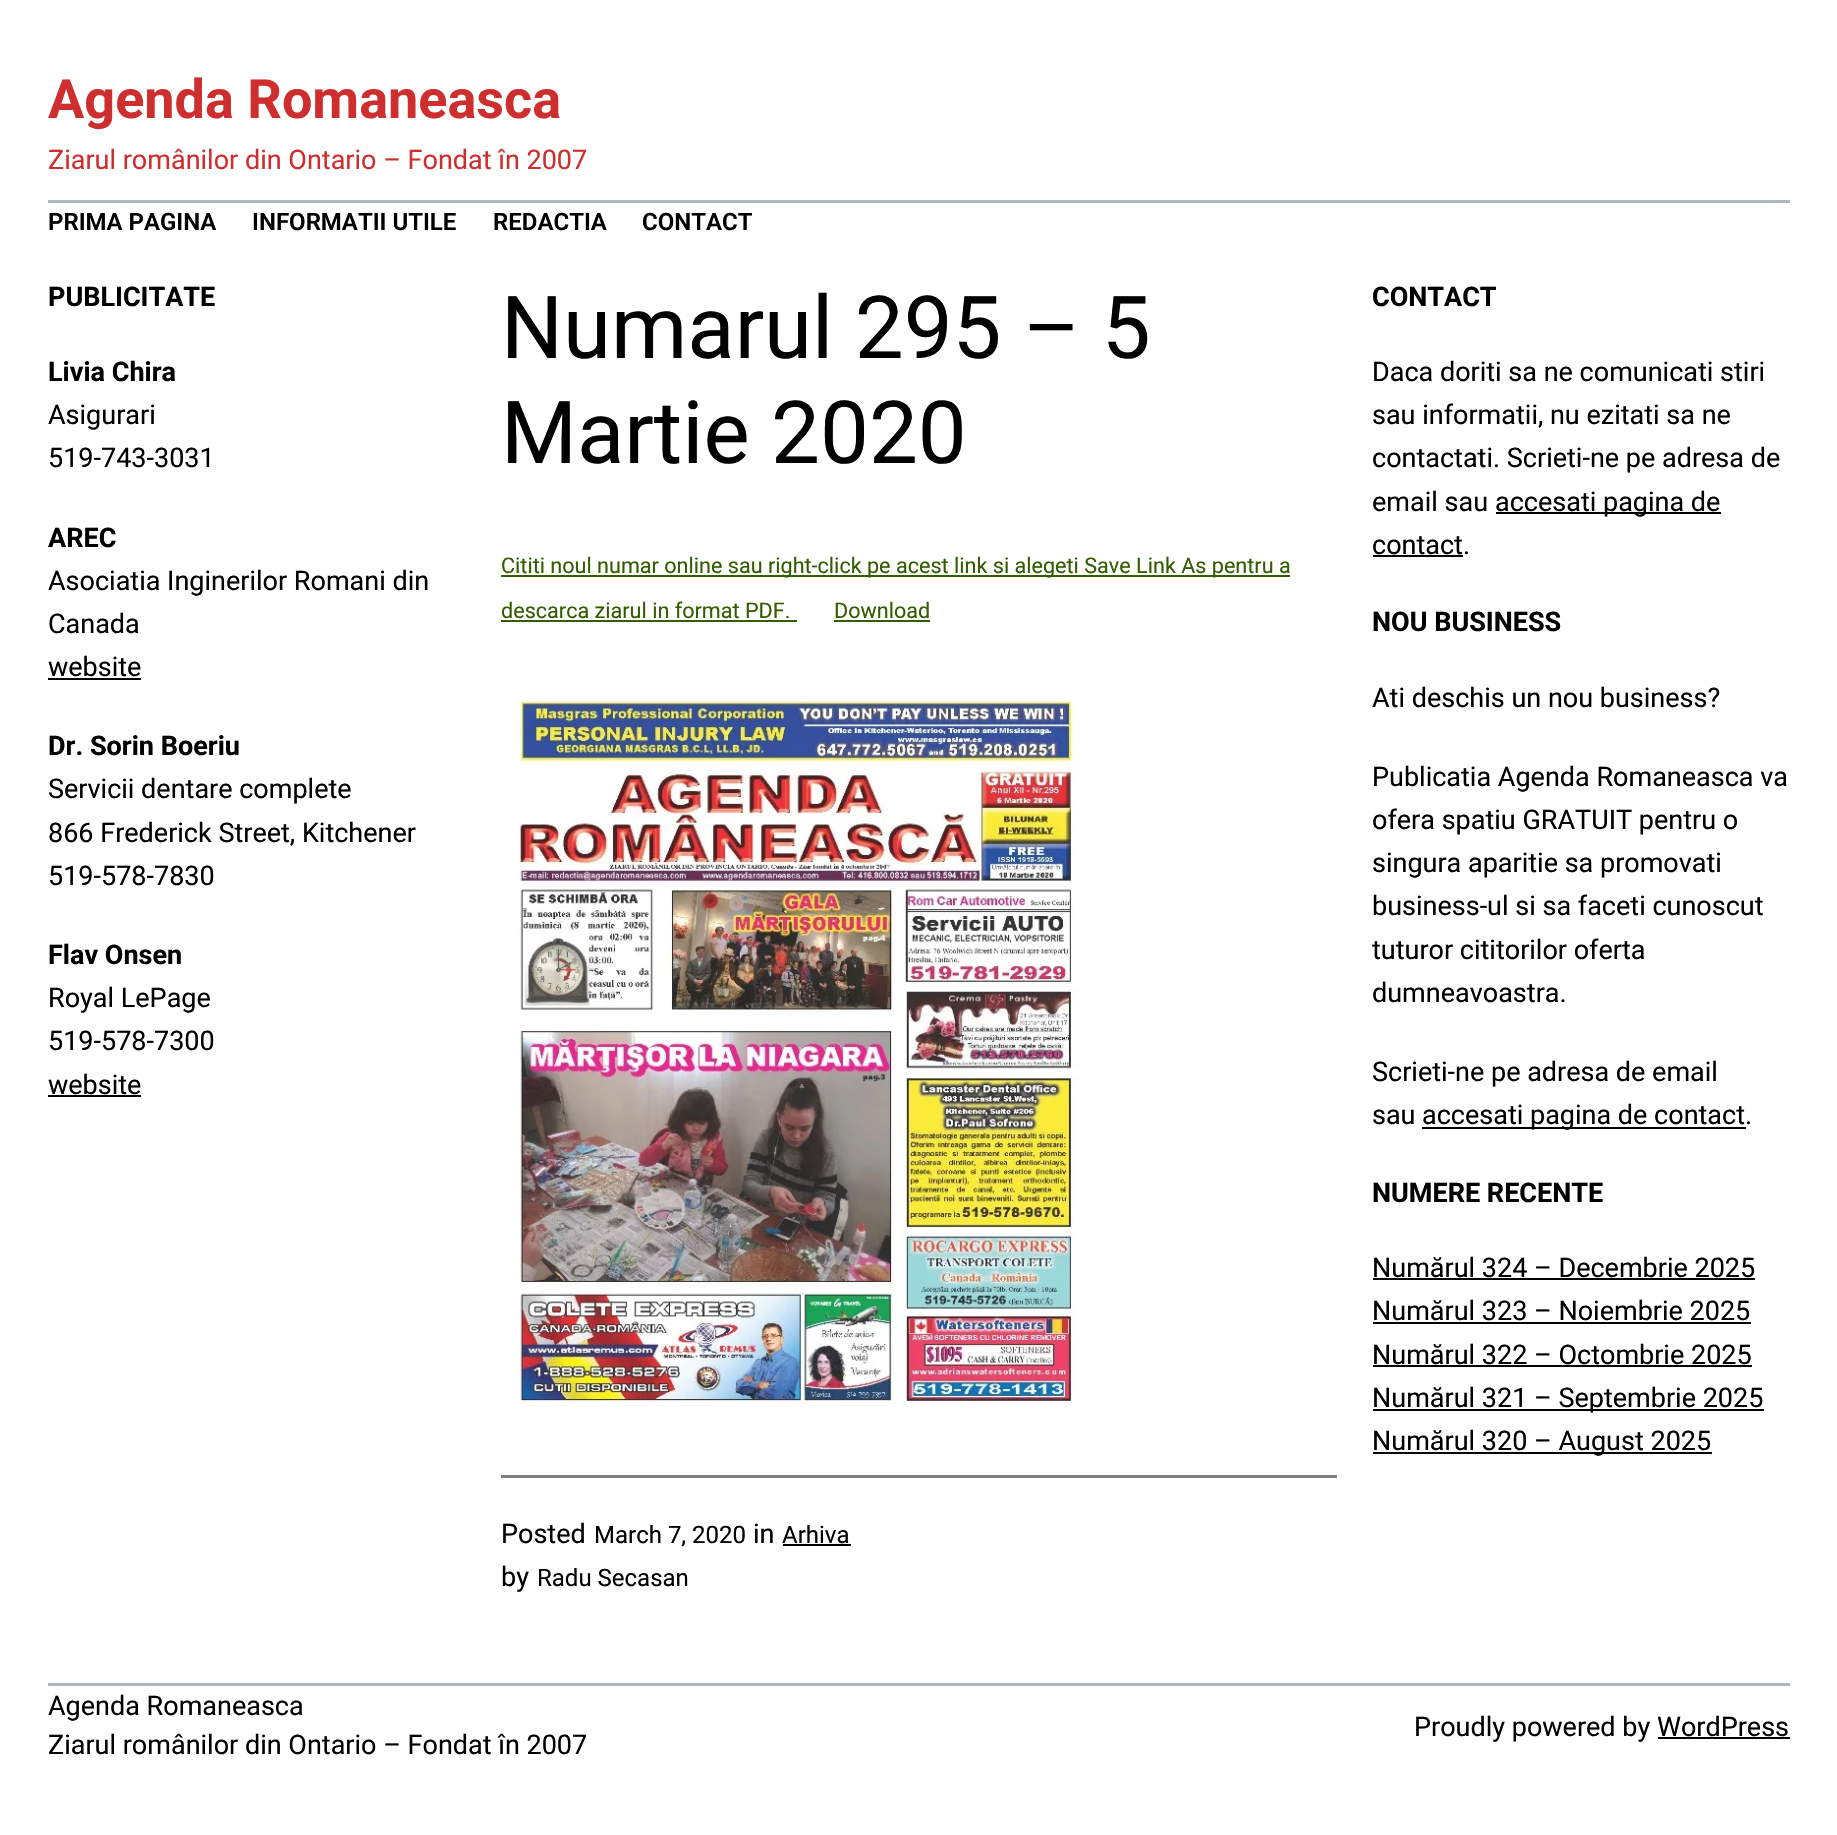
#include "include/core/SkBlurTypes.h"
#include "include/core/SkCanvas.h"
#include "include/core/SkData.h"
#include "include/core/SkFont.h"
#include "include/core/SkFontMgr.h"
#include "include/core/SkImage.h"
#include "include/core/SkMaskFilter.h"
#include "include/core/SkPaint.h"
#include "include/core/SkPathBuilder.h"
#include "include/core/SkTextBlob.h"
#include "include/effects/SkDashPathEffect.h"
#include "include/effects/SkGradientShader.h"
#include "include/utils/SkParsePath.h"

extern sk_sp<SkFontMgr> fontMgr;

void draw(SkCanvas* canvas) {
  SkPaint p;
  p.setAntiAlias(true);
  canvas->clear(SK_ColorWHITE);
  p.setColor(SkColorSetRGB(171, 184, 195));
  canvas->drawRect(SkRect::MakeLTRB(48, 200, 1790, 203), p);
  p.setColor(SK_ColorBLACK);
  canvas->drawRect(SkRect::MakeLTRB(48, 678, 141, 680), p);
  canvas->drawRect(SkRect::MakeLTRB(48, 1095, 141, 1097), p);
  p.setColor(SkColorSetRGB(52, 92, 0));
  canvas->drawRect(SkRect::MakeLTRB(501, 575, 1290, 577), p);
  canvas->drawRect(SkRect::MakeLTRB(501, 620, 797, 622), p);
  canvas->drawRect(SkRect::MakeLTRB(834, 620, 930, 622), p);
  canvas->drawImageRect(SkImages::DeferredFromEncodedData(SkData::MakeFromFileName("images/1.png")), SkRect::MakeLTRB(517, 699, 1079, 1407), SkSamplingOptions());
  p.setColor(SkColorSetRGB(128, 128, 128));
  canvas->drawRect(SkRect::MakeLTRB(501, 1475, 1337, 1478), p);
  p.setColor(SK_ColorBLACK);
  canvas->drawRect(SkRect::MakeLTRB(783, 1544, 851, 1546), p);
  canvas->drawRect(SkRect::MakeLTRB(1496, 512, 1721, 514), p);
  canvas->drawRect(SkRect::MakeLTRB(1373, 555, 1463, 557), p);
  canvas->drawRect(SkRect::MakeLTRB(1422, 1127, 1746, 1129), p);
  canvas->drawRect(SkRect::MakeLTRB(1373, 1278, 1755, 1280), p);
  canvas->drawRect(SkRect::MakeLTRB(1373, 1322, 1751, 1324), p);
  canvas->drawRect(SkRect::MakeLTRB(1373, 1365, 1752, 1367), p);
  canvas->drawRect(SkRect::MakeLTRB(1373, 1409, 1764, 1411), p);
  canvas->drawRect(SkRect::MakeLTRB(1373, 1452, 1712, 1454), p);
  p.setColor(SkColorSetRGB(171, 184, 195));
  canvas->drawRect(SkRect::MakeLTRB(48, 1683, 1790, 1686), p);
  p.setColor(SK_ColorBLACK);
  canvas->drawRect(SkRect::MakeLTRB(1658, 1737, 1790, 1739), p);
  SkFont font1(fontMgr->matchFamilyStyle("Roboto", SkFontStyle::Bold()), 54);
  font1.setSubpixel(true);
  p.setColor(SkColorSetRGB(207, 46, 46));
  canvas->drawString("Agenda Romaneasca", 48, 118, font1, p);
  SkFont font2(fontMgr->matchFamilyStyle("Roboto", SkFontStyle::Normal()), 27);
  font2.setSubpixel(true);
  canvas->drawString("Ziarul românilor din Ontario – Fondat în 2007", 48, 169, font2, p);
  SkFont font3(fontMgr->matchFamilyStyle("Roboto", SkFontStyle(600, SkFontStyle::kNormal_Width, SkFontStyle::kUpright_Slant)), 24);
  font3.setSubpixel(true);
  p.setColor(SK_ColorBLACK);
  canvas->drawString("PRIMA PAGINA", 48, 230, font3, p);
  canvas->drawString("INFORMATII UTILE", 252, 230, font3, p);
  canvas->drawString("REDACTIA", 493, 230, font3, p);
  canvas->drawString("CONTACT", 642, 230, font3, p);
  SkFont font4(fontMgr->matchFamilyStyle("Roboto", SkFontStyle::Bold()), 27);
  font4.setSubpixel(true);
  canvas->drawString("PUBLICITATE", 48, 306, font4, p);
  canvas->drawString("Livia Chira", 48, 381, font4, p);
  canvas->drawString("Asigurari", 48, 424, font2, p);
  canvas->drawString("519-743-3031", 48, 467, font2, p);
  canvas->drawString("AREC", 48, 547, font4, p);
  canvas->drawString("Asociatia Inginerilor Romani din", 48, 590, font2, p);
  canvas->drawString("Canada", 48, 633, font2, p);
  canvas->drawString("website", 48, 676, font2, p);
  canvas->drawString("Dr. Sorin Boeriu", 48, 755, font4, p);
  canvas->drawString("Servicii dentare complete", 48, 798, font2, p);
  canvas->drawString("866 Frederick Street, Kitchener", 48, 842, font2, p);
  canvas->drawString("519-578-7830", 48, 885, font2, p);
  canvas->drawString("Flav Onsen", 48, 964, font4, p);
  canvas->drawString("Royal LePage", 48, 1007, font2, p);
  canvas->drawString("519-578-7300", 48, 1050, font2, p);
  canvas->drawString("website", 48, 1094, font2, p);
  SkFont font5(fontMgr->matchFamilyStyle("Roboto", SkFontStyle::Normal()), 87);
  font5.setSubpixel(true);
  canvas->drawString("Numarul 295 – 5", 501, 358, font5, p);
  canvas->drawString("Martie 2020", 501, 463, font5, p);
  SkFont font6(fontMgr->matchFamilyStyle("Roboto", SkFontStyle::Normal()), 21.6f);
  font6.setSubpixel(true);
  p.setColor(SkColorSetRGB(52, 92, 0));
  canvas->drawString("Cititi noul numar online sau right-click pe acest link si alegeti Save Link As pentru a", 501, 573, font6, p);
  canvas->drawString("descarca ziarul in format PDF.", 501, 618, font6, p);
  canvas->drawString("Download", 834, 618, font6, p);
  p.setColor(SK_ColorBLACK);
  canvas->drawString("Posted", 501, 1543, font2, p);
  SkFont font7(fontMgr->matchFamilyStyle("Roboto", SkFontStyle::Normal()), 24);
  font7.setSubpixel(true);
  canvas->drawString("March 7, 2020", 594, 1543, font7, p);
  canvas->drawString("in", 753, 1543, font2, p);
  canvas->drawString("Arhiva", 782, 1543, font7, p);
  canvas->drawString("by", 501, 1586, font2, p);
  canvas->drawString("Radu Secasan", 537, 1586, font7, p);
  canvas->drawString("CONTACT", 1372, 306, font4, p);
  canvas->drawString("Daca doriti sa ne comunicati stiri", 1372, 381, font2, p);
  canvas->drawString("sau informatii, nu ezitati sa ne", 1372, 424, font2, p);
  canvas->drawString("contactati. Scrieti-ne pe adresa de", 1372, 467, font2, p);
  canvas->drawString("email sau", 1372, 511, font2, p);
  canvas->drawString("accesati pagina de", 1495, 511, font2, p);
  canvas->drawString("contact.", 1372, 554, font2, p);
  canvas->drawString("NOU BUSINESS", 1372, 631, font4, p);
  canvas->drawString("Ati deschis un nou business?", 1372, 707, font2, p);
  canvas->drawString("Publicatia Agenda Romaneasca va", 1372, 786, font2, p);
  canvas->drawString("ofera spatiu GRATUIT pentru o", 1372, 829, font2, p);
  canvas->drawString("singura aparitie sa promovati", 1372, 872, font2, p);
  canvas->drawString("business-ul si sa faceti cunoscut", 1372, 915, font2, p);
  canvas->drawString("tuturor cititorilor oferta", 1372, 959, font2, p);
  canvas->drawString("dumneavoastra.", 1372, 1002, font2, p);
  canvas->drawString("Scrieti-ne pe adresa de email", 1372, 1081, font2, p);
  canvas->drawString("sau", 1372, 1124, font2, p);
  canvas->drawString("accesati pagina de contact.", 1422, 1124, font2, p);
  canvas->drawString("NUMERE RECENTE", 1372, 1202, font4, p);
  canvas->drawString("Numărul 324 – Decembrie 2025", 1372, 1277, font2, p);
  canvas->drawString("Numărul 323 – Noiembrie 2025", 1372, 1320, font2, p);
  canvas->drawString("Numărul 322 – Octombrie 2025", 1372, 1364, font2, p);
  canvas->drawString("Numărul 321 – Septembrie 2025", 1372, 1407, font2, p);
  canvas->drawString("Numărul 320 – August 2025", 1372, 1450, font2, p);
  canvas->drawString("Agenda Romaneasca", 48, 1715, font2, p);
  canvas->drawString("Ziarul românilor din Ontario – Fondat în 2007", 48, 1754, font2, p);
  canvas->drawString("Proudly powered by WordPress", 1414, 1736, font2, p);
}
